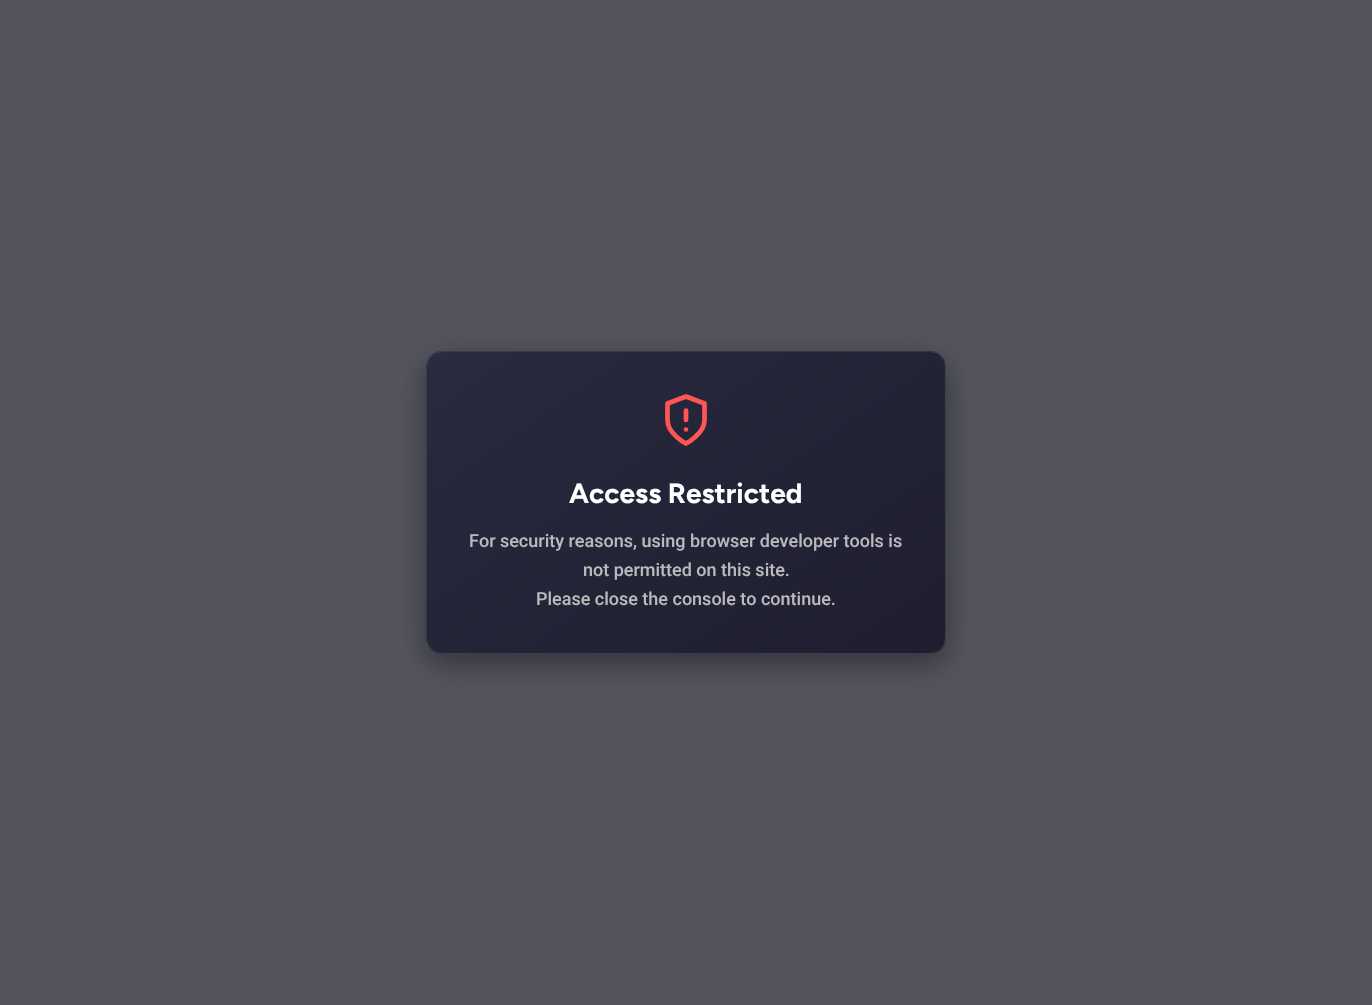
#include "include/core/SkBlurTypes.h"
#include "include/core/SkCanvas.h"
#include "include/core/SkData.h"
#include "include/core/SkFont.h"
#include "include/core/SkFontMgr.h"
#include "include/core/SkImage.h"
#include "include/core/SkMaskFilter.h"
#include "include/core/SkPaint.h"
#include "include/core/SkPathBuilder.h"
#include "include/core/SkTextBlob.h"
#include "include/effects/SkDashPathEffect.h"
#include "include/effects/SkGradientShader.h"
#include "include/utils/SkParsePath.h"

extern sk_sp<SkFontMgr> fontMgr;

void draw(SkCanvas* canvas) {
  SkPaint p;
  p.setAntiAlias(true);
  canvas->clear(SkColorSetRGB(84, 84, 94));
  p.setColor(SkColorSetARGB(102, 0, 0, 0));
  p.setMaskFilter(SkMaskFilter::MakeBlur(kNormal_SkBlurStyle, 15));
  canvas->drawRoundRect(SkRect::MakeLTRB(426, 361, 946, 664), 16, 16, p);
  p.setMaskFilter(nullptr);
  canvas->save();
  canvas->clipPath(SkPathBuilder().moveTo(442, 351).lineTo(930, 351).cubicTo(939, 351, 946, 358, 946, 367).lineTo(946, 638).cubicTo(946, 647, 939, 654, 930, 654).lineTo(442, 654).cubicTo(433, 654, 426, 647, 426, 638).lineTo(426, 367).cubicTo(426, 358, 433, 351, 442, 351).close().detach(), true);
  {
    const SkColor colors[] = {SkColorSetRGB(42, 42, 64), SkColorSetRGB(30, 30, 47)};
    const float stops[] = {0, 1};
    const SkPoint ends[] = {{530, -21}, {842, 424}};
    p.setShader(SkGradientShader::MakeLinear(ends, colors, stops, 2, SkTileMode::kClamp));
    p.setAlpha(255);
  }
  canvas->drawRect(SkRect::MakeLTRB(436, 351, 936, 352), p);
  {
    const SkColor colors[] = {SkColorSetRGB(42, 42, 64), SkColorSetRGB(30, 30, 47)};
    const float stops[] = {0, 1};
    const SkPoint ends[] = {{12, 280}, {324, 725}};
    p.setShader(SkGradientShader::MakeLinear(ends, colors, stops, 2, SkTileMode::kClamp));
    p.setAlpha(255);
  }
  canvas->drawRect(SkRect::MakeLTRB(426, 361, 427, 644), p);
  {
    const SkColor colors[] = {SkColorSetRGB(42, 42, 64), SkColorSetRGB(30, 30, 47)};
    const float stops[] = {0, 1};
    const SkPoint ends[] = {{530, 280}, {842, 725}};
    p.setShader(SkGradientShader::MakeLinear(ends, colors, stops, 2, SkTileMode::kClamp));
    p.setAlpha(255);
  }
  canvas->drawRect(SkRect::MakeLTRB(427, 352, 945, 653), p);
  {
    const SkColor colors[] = {SkColorSetRGB(42, 42, 64), SkColorSetRGB(30, 30, 47)};
    const float stops[] = {0, 1};
    const SkPoint ends[] = {{1048, 280}, {1360, 725}};
    p.setShader(SkGradientShader::MakeLinear(ends, colors, stops, 2, SkTileMode::kClamp));
    p.setAlpha(255);
  }
  canvas->drawRect(SkRect::MakeLTRB(945, 361, 946, 644), p);
  {
    const SkColor colors[] = {SkColorSetRGB(42, 42, 64), SkColorSetRGB(30, 30, 47)};
    const float stops[] = {0, 1};
    const SkPoint ends[] = {{530, 581}, {842, 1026}};
    p.setShader(SkGradientShader::MakeLinear(ends, colors, stops, 2, SkTileMode::kClamp));
    p.setAlpha(255);
  }
  canvas->drawRect(SkRect::MakeLTRB(436, 653, 936, 654), p);
  canvas->restore();
  p.setStyle(SkPaint::kStroke_Style);
  p.setStrokeWidth(1);
  p.setShader(nullptr);
  p.setColor(SkColorSetARGB(26, 255, 255, 255));
  canvas->drawRoundRect(SkRect::MakeLTRB(426.5f, 351.5f, 945.5f, 653.5f), 15.5f, 15.5f, p);
  p.setStrokeWidth(4.7f);
  p.setStrokeCap(SkPaint::kRound_Cap);
  p.setStrokeJoin(SkPaint::kRound_Join);
  p.setColor(SkColorSetRGB(255, 85, 85));
  canvas->drawPath(SkPathBuilder().moveTo(686, 443.5f).cubicTo(686, 443.5f, 704.5f, 434, 704.5f, 420).lineTo(704.5f, 403.5f).lineTo(686, 396.5f).lineTo(667.5f, 403.5f).lineTo(667.5f, 420).cubicTo(667.5f, 434, 686, 443.5f, 686, 443.5f).close().moveTo(686, 410.5f).lineTo(686, 420).moveTo(686, 429.5f).lineTo(686, 429.5f).detach(), p);
  SkFont font1(fontMgr->matchFamilyStyle("Figtree", SkFontStyle::Bold()), 28);
  font1.setSubpixel(true);
  p.setStyle(SkPaint::kFill_Style);
  p.setColor(SK_ColorWHITE);
  canvas->drawString("Access Restricted", 569, 503, font1, p);
  SkFont font2(fontMgr->matchFamilyStyle("Roboto", SkFontStyle(500, SkFontStyle::kNormal_Width, SkFontStyle::kUpright_Slant)), 18);
  font2.setSubpixel(true);
  p.setColor(SkColorSetRGB(186, 186, 190));
  canvas->drawString("For security reasons, using browser developer tools is", 469, 547, font2, p);
  canvas->drawString("not permitted on this site.", 583, 576, font2, p);
  canvas->drawString("Please close the console to continue.", 536, 605, font2, p);
}
